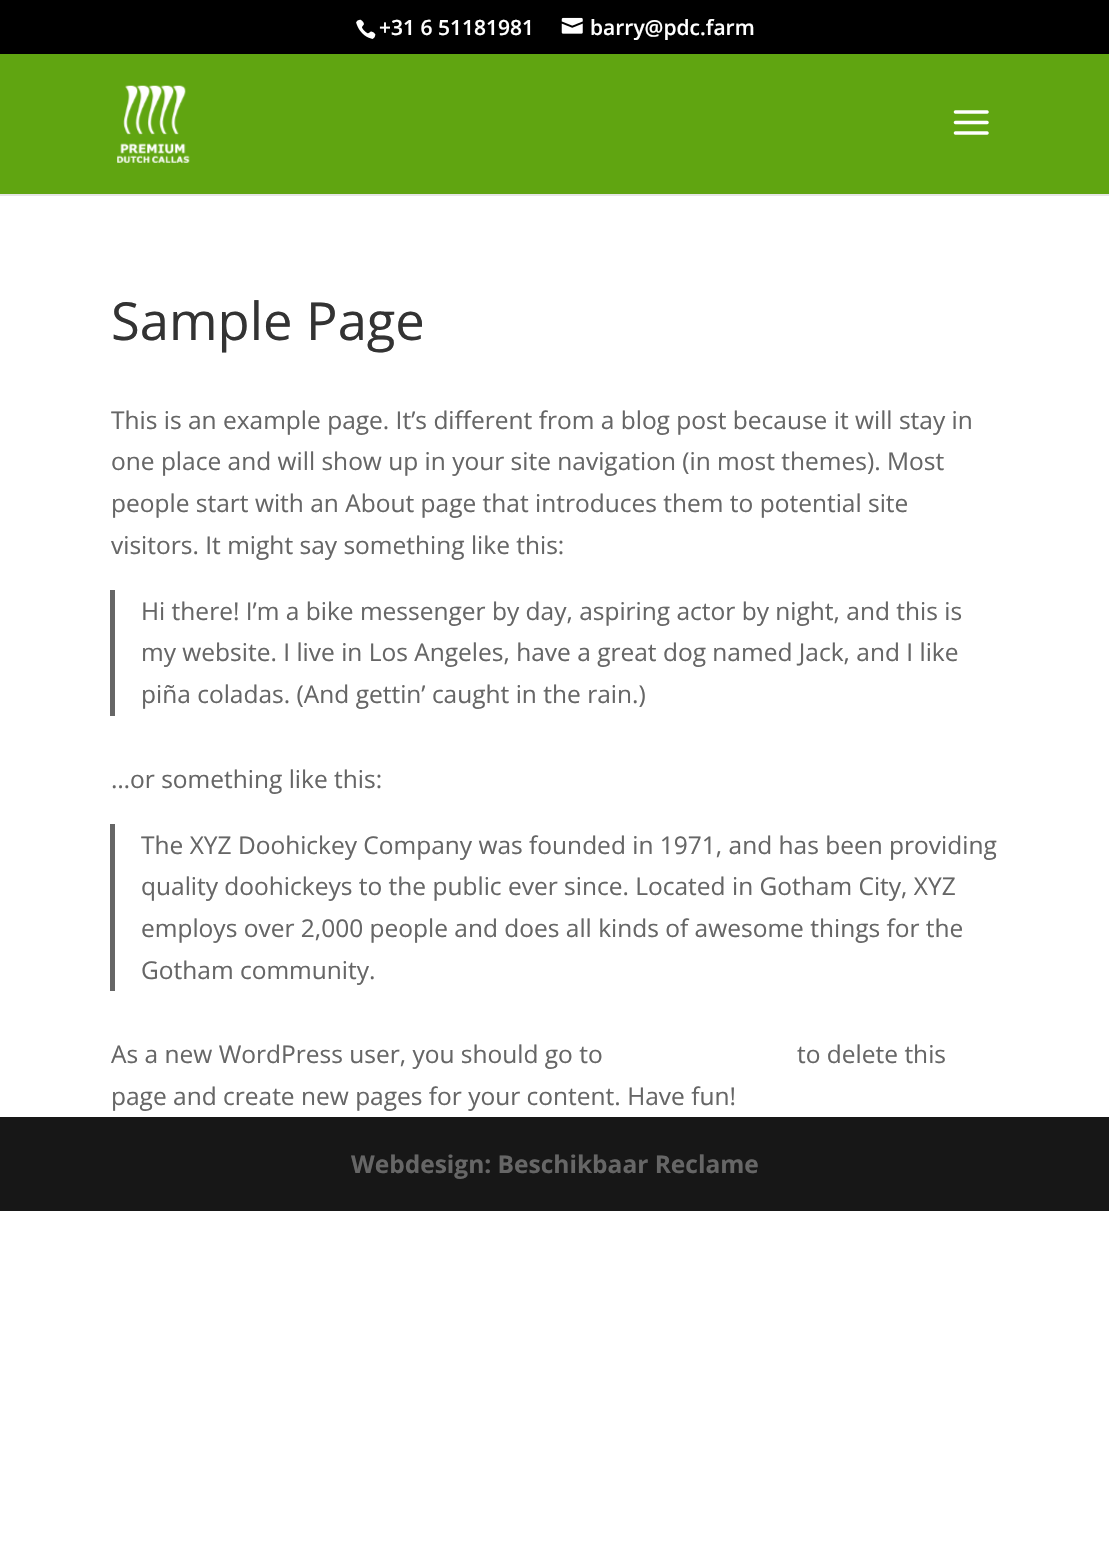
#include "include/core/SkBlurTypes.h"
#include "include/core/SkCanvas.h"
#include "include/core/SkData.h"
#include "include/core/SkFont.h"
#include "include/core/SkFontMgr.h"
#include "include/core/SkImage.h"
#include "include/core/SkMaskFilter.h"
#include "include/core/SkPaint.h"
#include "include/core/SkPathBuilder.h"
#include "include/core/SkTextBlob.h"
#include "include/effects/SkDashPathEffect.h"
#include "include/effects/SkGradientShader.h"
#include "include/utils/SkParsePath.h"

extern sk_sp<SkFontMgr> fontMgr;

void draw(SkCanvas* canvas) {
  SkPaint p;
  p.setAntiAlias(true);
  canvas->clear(SK_ColorWHITE);
  p.setColor(SK_ColorBLACK);
  canvas->drawRect(SkRect::MakeLTRB(0, 0, 1109, 54), p);
  canvas->drawImageRect(SkImages::DeferredFromEncodedData(SkData::MakeFromFileName("images/1.png")), SkRect::MakeLTRB(356, 19, 376, 39), SkSamplingOptions());
  canvas->drawImageRect(SkImages::DeferredFromEncodedData(SkData::MakeFromFileName("images/2.png")), SkRect::MakeLTRB(561, 17, 583, 34), SkSamplingOptions());
  p.setColor(SkColorSetRGB(230, 230, 230));
  canvas->drawPath(SkPathBuilder().moveTo(0, 194).lineTo(0, 196).lineTo(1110, 196).lineTo(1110, 56).lineTo(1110, 194).close().detach(), p);
  p.setColor(SkColorSetRGB(96, 165, 17));
  canvas->drawRect(SkRect::MakeLTRB(0, 54, 1109, 194), p);
  canvas->drawImageRect(SkImages::DeferredFromEncodedData(SkData::MakeFromFileName("images/3.png")), SkRect::MakeLTRB(117, 85, 190, 163), SkSamplingOptions());
  canvas->drawImageRect(SkImages::DeferredFromEncodedData(SkData::MakeFromFileName("images/4.png")), SkRect::MakeLTRB(953, 110, 989, 135), SkSamplingOptions());
  p.setColor(SkColorSetRGB(102, 102, 102));
  canvas->drawRect(SkRect::MakeLTRB(110, 590, 115, 716), p);
  canvas->drawRect(SkRect::MakeLTRB(110, 824, 115, 991), p);
  p.setColor(SkColorSetRGB(23, 23, 23));
  canvas->drawRect(SkRect::MakeLTRB(0, 1117, 1109, 1211), p);
  SkFont font1(fontMgr->matchFamilyStyle("Open Sans", SkFontStyle(600, SkFontStyle::kNormal_Width, SkFontStyle::kUpright_Slant)), 21);
  font1.setSubpixel(true);
  p.setColor(SK_ColorWHITE);
  canvas->drawString("+31 6 51181981", 379, 35, font1, p);
  canvas->drawString("barry@pdc.farm", 590, 35, font1, p);
  SkFont font2(fontMgr->matchFamilyStyle("Open Sans", SkFontStyle::Normal()), 52.5f);
  font2.setSubpixel(true);
  p.setColor(SkColorSetRGB(51, 51, 51));
  canvas->drawString("Sample Page", 111, 340, font2, p);
  SkFont font3(fontMgr->matchFamilyStyle("Open Sans", SkFontStyle::Normal()), 24.5f);
  font3.setSubpixel(true);
  p.setColor(SkColorSetRGB(102, 102, 102));
  canvas->drawString("This is an example page. It’s different from a blog post because it will stay in", 111, 429, font3, p);
  canvas->drawString("one place and will show up in your site navigation (in most themes). Most", 111, 470, font3, p);
  canvas->drawString("people start with an About page that introduces them to potential site", 111, 512, font3, p);
  canvas->drawString("visitors. It might say something like this:", 111, 554, font3, p);
  canvas->drawString("Hi there! I’m a bike messenger by day, aspiring actor by night, and this is", 141, 620, font3, p);
  canvas->drawString("my website. I live in Los Angeles, have a great dog named Jack, and I like", 141, 661, font3, p);
  canvas->drawString("piña coladas. (And gettin’ caught in the rain.)", 141, 703, font3, p);
  canvas->drawString("…or something like this:", 111, 788, font3, p);
  canvas->drawString("The XYZ Doohickey Company was founded in 1971, and has been providing", 141, 854, font3, p);
  canvas->drawString("quality doohickeys to the public ever since. Located in Gotham City, XYZ", 141, 895, font3, p);
  canvas->drawString("employs over 2,000 people and does all kinds of awesome things for the", 141, 937, font3, p);
  canvas->drawString("Gotham community.", 141, 979, font3, p);
  canvas->drawString("As a new WordPress user, you should go to", 111, 1063, font3, p);
  canvas->drawString("to delete this", 797, 1063, font3, p);
  canvas->drawString("page and create new pages for your content. Have fun!", 111, 1105, font3, p);
  SkFont font4(fontMgr->matchFamilyStyle("Open Sans", SkFontStyle::Bold()), 24.5f);
  font4.setSubpixel(true);
  canvas->drawString("Webdesign: Beschikbaar Reclame", 351, 1173, font4, p);
}
